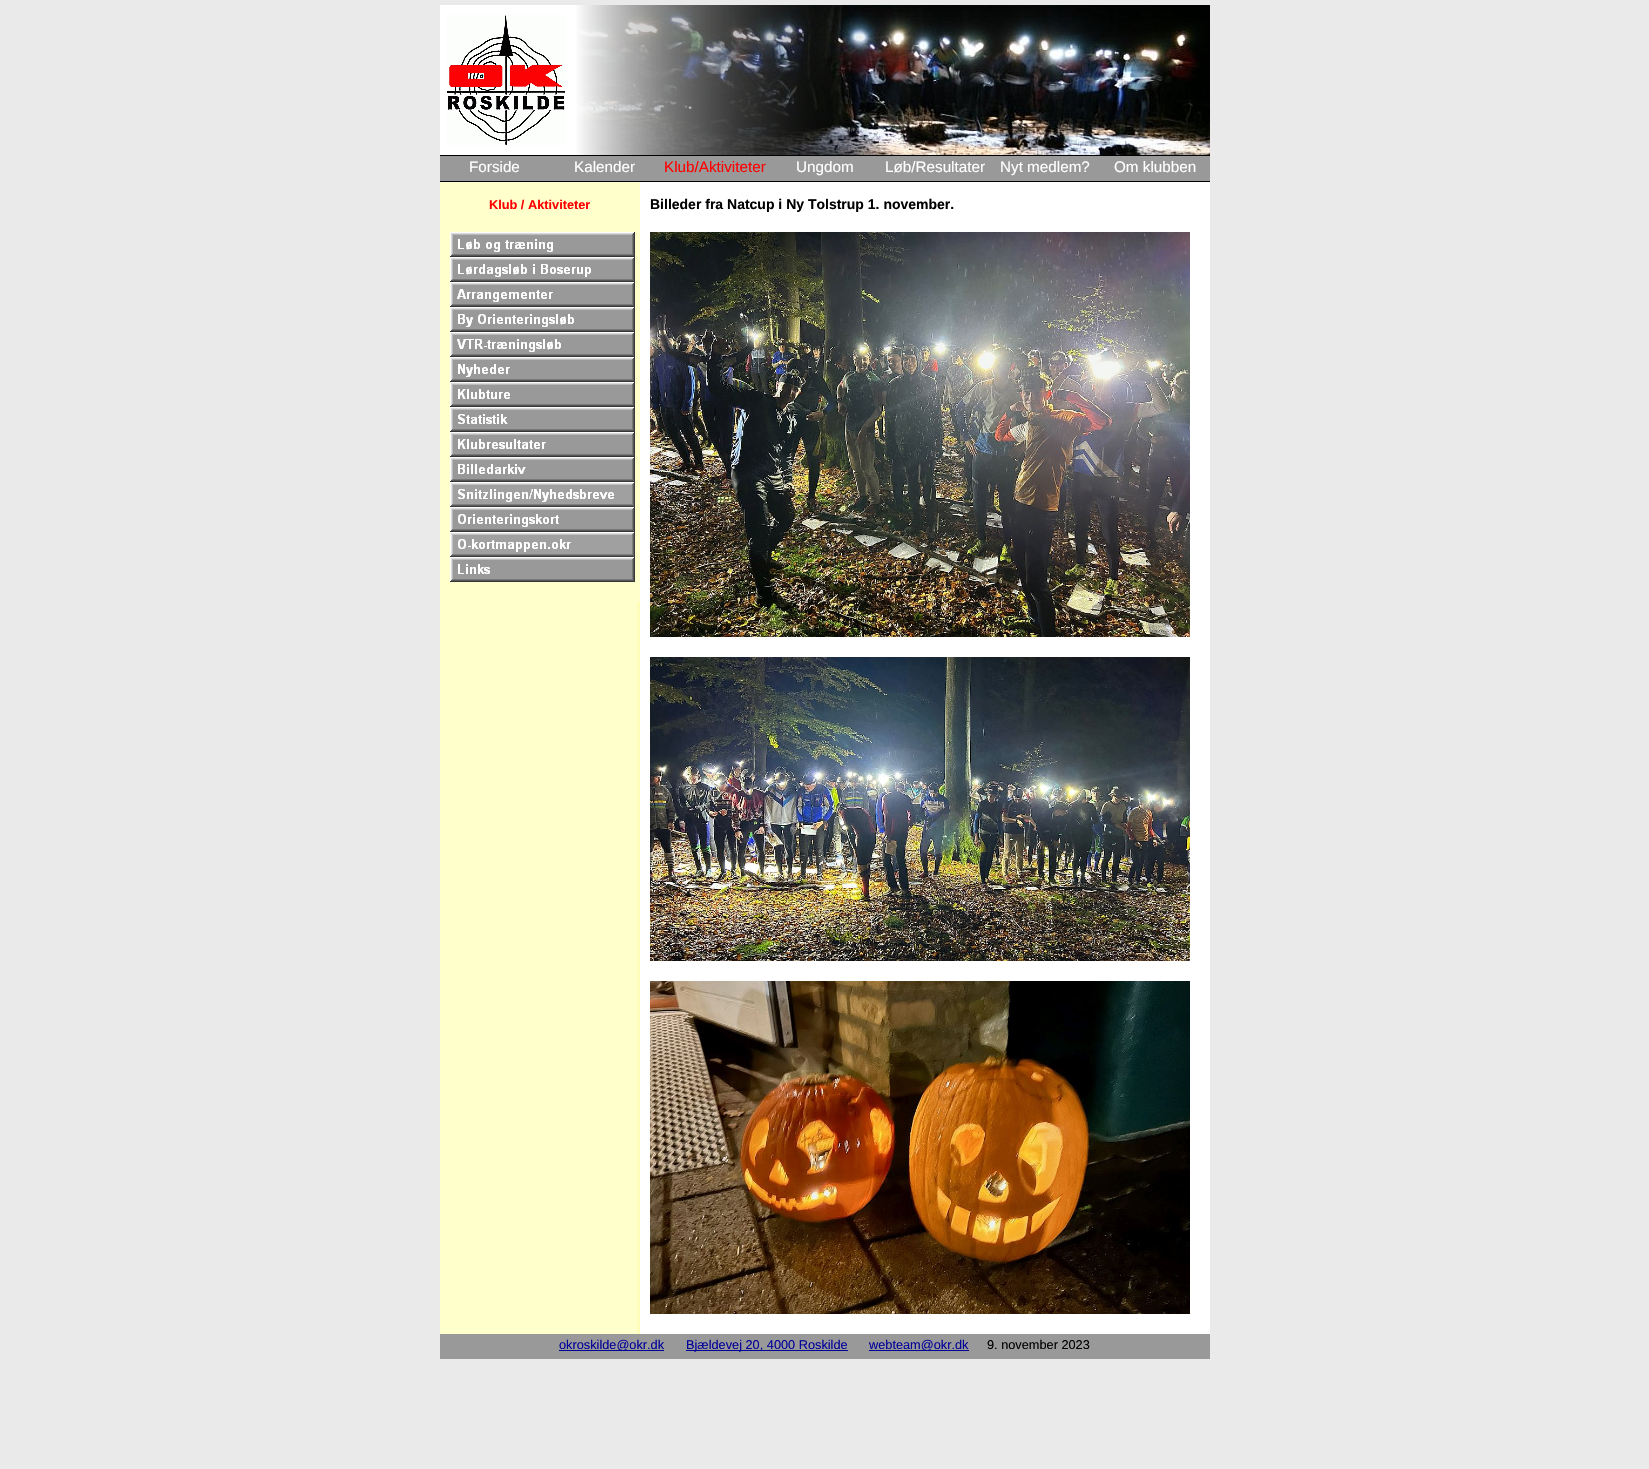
#include "include/core/SkBlurTypes.h"
#include "include/core/SkCanvas.h"
#include "include/core/SkData.h"
#include "include/core/SkFont.h"
#include "include/core/SkFontMgr.h"
#include "include/core/SkImage.h"
#include "include/core/SkMaskFilter.h"
#include "include/core/SkPaint.h"
#include "include/core/SkPathBuilder.h"
#include "include/core/SkTextBlob.h"
#include "include/effects/SkDashPathEffect.h"
#include "include/effects/SkGradientShader.h"
#include "include/utils/SkParsePath.h"

extern sk_sp<SkFontMgr> fontMgr;

void draw(SkCanvas* canvas) {
  SkPaint p;
  p.setAntiAlias(true);
  canvas->clear(SkColorSetRGB(234, 234, 234));
  p.setColor(SK_ColorWHITE);
  canvas->drawRect(SkRect::MakeLTRB(640, 182, 1210, 1334), p);
  canvas->drawImageRect(SkImages::DeferredFromEncodedData(SkData::MakeFromFileName("images/1.png")), SkRect::MakeLTRB(440, 602, 640, 1334), SkSamplingOptions());
  canvas->drawRect(SkRect::MakeLTRB(440, 5, 573, 155), p);
  canvas->drawImageRect(SkImages::DeferredFromEncodedData(SkData::MakeFromFileName("images/2.png")), SkRect::MakeLTRB(447, 15, 565, 145), SkSamplingOptions());
  canvas->drawImageRect(SkImages::DeferredFromEncodedData(SkData::MakeFromFileName("images/3.png")), SkRect::MakeLTRB(573, 5, 1210, 155), SkSamplingOptions());
  p.setColor(SK_ColorBLACK);
  canvas->drawRect(SkRect::MakeLTRB(440, 155, 1210, 156), p);
  canvas->drawRect(SkRect::MakeLTRB(440, 181, 1210, 182), p);
  p.setColor(SkColorSetRGB(153, 153, 153));
  canvas->drawRect(SkRect::MakeLTRB(440, 156, 1210, 181), p);
  p.setColor(SkColorSetRGB(255, 255, 204));
  canvas->drawRect(SkRect::MakeLTRB(440, 182, 640, 602), p);
  canvas->drawImageRect(SkImages::DeferredFromEncodedData(SkData::MakeFromFileName("images/4.png")), SkRect::MakeLTRB(450, 232, 635, 257), SkSamplingOptions());
  canvas->drawImageRect(SkImages::DeferredFromEncodedData(SkData::MakeFromFileName("images/5.png")), SkRect::MakeLTRB(450, 257, 635, 282), SkSamplingOptions());
  canvas->drawImageRect(SkImages::DeferredFromEncodedData(SkData::MakeFromFileName("images/6.png")), SkRect::MakeLTRB(450, 282, 635, 307), SkSamplingOptions());
  canvas->drawImageRect(SkImages::DeferredFromEncodedData(SkData::MakeFromFileName("images/7.png")), SkRect::MakeLTRB(450, 307, 635, 332), SkSamplingOptions());
  canvas->drawImageRect(SkImages::DeferredFromEncodedData(SkData::MakeFromFileName("images/8.png")), SkRect::MakeLTRB(450, 332, 635, 357), SkSamplingOptions());
  canvas->drawImageRect(SkImages::DeferredFromEncodedData(SkData::MakeFromFileName("images/9.png")), SkRect::MakeLTRB(450, 357, 635, 382), SkSamplingOptions());
  canvas->drawImageRect(SkImages::DeferredFromEncodedData(SkData::MakeFromFileName("images/10.png")), SkRect::MakeLTRB(450, 382, 635, 407), SkSamplingOptions());
  canvas->drawImageRect(SkImages::DeferredFromEncodedData(SkData::MakeFromFileName("images/11.png")), SkRect::MakeLTRB(450, 407, 635, 432), SkSamplingOptions());
  canvas->drawImageRect(SkImages::DeferredFromEncodedData(SkData::MakeFromFileName("images/12.png")), SkRect::MakeLTRB(450, 432, 635, 457), SkSamplingOptions());
  canvas->drawImageRect(SkImages::DeferredFromEncodedData(SkData::MakeFromFileName("images/13.png")), SkRect::MakeLTRB(450, 457, 635, 482), SkSamplingOptions());
  canvas->drawImageRect(SkImages::DeferredFromEncodedData(SkData::MakeFromFileName("images/14.png")), SkRect::MakeLTRB(450, 482, 635, 507), SkSamplingOptions());
  canvas->drawImageRect(SkImages::DeferredFromEncodedData(SkData::MakeFromFileName("images/15.png")), SkRect::MakeLTRB(450, 507, 635, 532), SkSamplingOptions());
  canvas->drawImageRect(SkImages::DeferredFromEncodedData(SkData::MakeFromFileName("images/16.png")), SkRect::MakeLTRB(450, 532, 635, 557), SkSamplingOptions());
  canvas->drawImageRect(SkImages::DeferredFromEncodedData(SkData::MakeFromFileName("images/17.png")), SkRect::MakeLTRB(450, 557, 635, 582), SkSamplingOptions());
  canvas->drawImageRect(SkImages::DeferredFromEncodedData(SkData::MakeFromFileName("images/18.png")), SkRect::MakeLTRB(650, 232, 1190, 637), SkSamplingOptions());
  canvas->drawImageRect(SkImages::DeferredFromEncodedData(SkData::MakeFromFileName("images/19.png")), SkRect::MakeLTRB(650, 657, 1190, 961), SkSamplingOptions());
  canvas->drawImageRect(SkImages::DeferredFromEncodedData(SkData::MakeFromFileName("images/20.png")), SkRect::MakeLTRB(650, 981, 1190, 1314), SkSamplingOptions());
  p.setColor(SkColorSetRGB(153, 153, 153));
  canvas->drawRect(SkRect::MakeLTRB(440, 1334, 1210, 1359), p);
  p.setColor(SkColorSetRGB(0, 0, 153));
  canvas->drawRect(SkRect::MakeLTRB(559, 1350, 664, 1351), p);
  canvas->drawRect(SkRect::MakeLTRB(686, 1350, 848, 1351), p);
  canvas->drawRect(SkRect::MakeLTRB(869, 1350, 969, 1351), p);
  SkFont font1(fontMgr->matchFamilyStyle("Liberation Sans", SkFontStyle::Normal()), 15.25f);
  font1.setSubpixel(true);
  p.setColor(SK_ColorWHITE);
  canvas->drawString("Forside", 469, 172, font1, p);
  canvas->drawString("Kalender", 574, 172, font1, p);
  p.setColor(SkColorSetRGB(255, 0, 0));
  canvas->drawString("Klub/Aktiviteter", 664, 172, font1, p);
  p.setColor(SK_ColorWHITE);
  canvas->drawString("Ungdom", 796, 172, font1, p);
  canvas->drawString("Løb/Resultater", 885, 172, font1, p);
  canvas->drawString("Nyt medlem?", 1000, 172, font1, p);
  canvas->drawString("Om klubben", 1114, 172, font1, p);
  SkFont font2(fontMgr->matchFamilyStyle("Liberation Sans", SkFontStyle::Bold()), 12.75f);
  font2.setSubpixel(true);
  p.setColor(SkColorSetRGB(255, 0, 0));
  canvas->drawString("Klub / Aktiviteter", 489, 209, font2, p);
  SkFont font3(fontMgr->matchFamilyStyle("Liberation Sans", SkFontStyle::Bold()), 14);
  font3.setSubpixel(true);
  p.setColor(SK_ColorBLACK);
  canvas->drawString("Billeder fra Natcup i Ny Tolstrup 1. november.", 650, 209, font3, p);
  SkFont font4(fontMgr->matchFamilyStyle("Liberation Sans", SkFontStyle::Normal()), 12.75f);
  font4.setSubpixel(true);
  p.setColor(SkColorSetRGB(0, 0, 153));
  canvas->drawString("okroskilde@okr.dk", 559, 1349, font4, p);
  canvas->drawString("Bjældevej 20, 4000 Roskilde", 686, 1349, font4, p);
  canvas->drawString("webteam@okr.dk", 869, 1349, font4, p);
  p.setColor(SK_ColorBLACK);
  canvas->drawString("9. november 2023", 987, 1349, font4, p);
}
